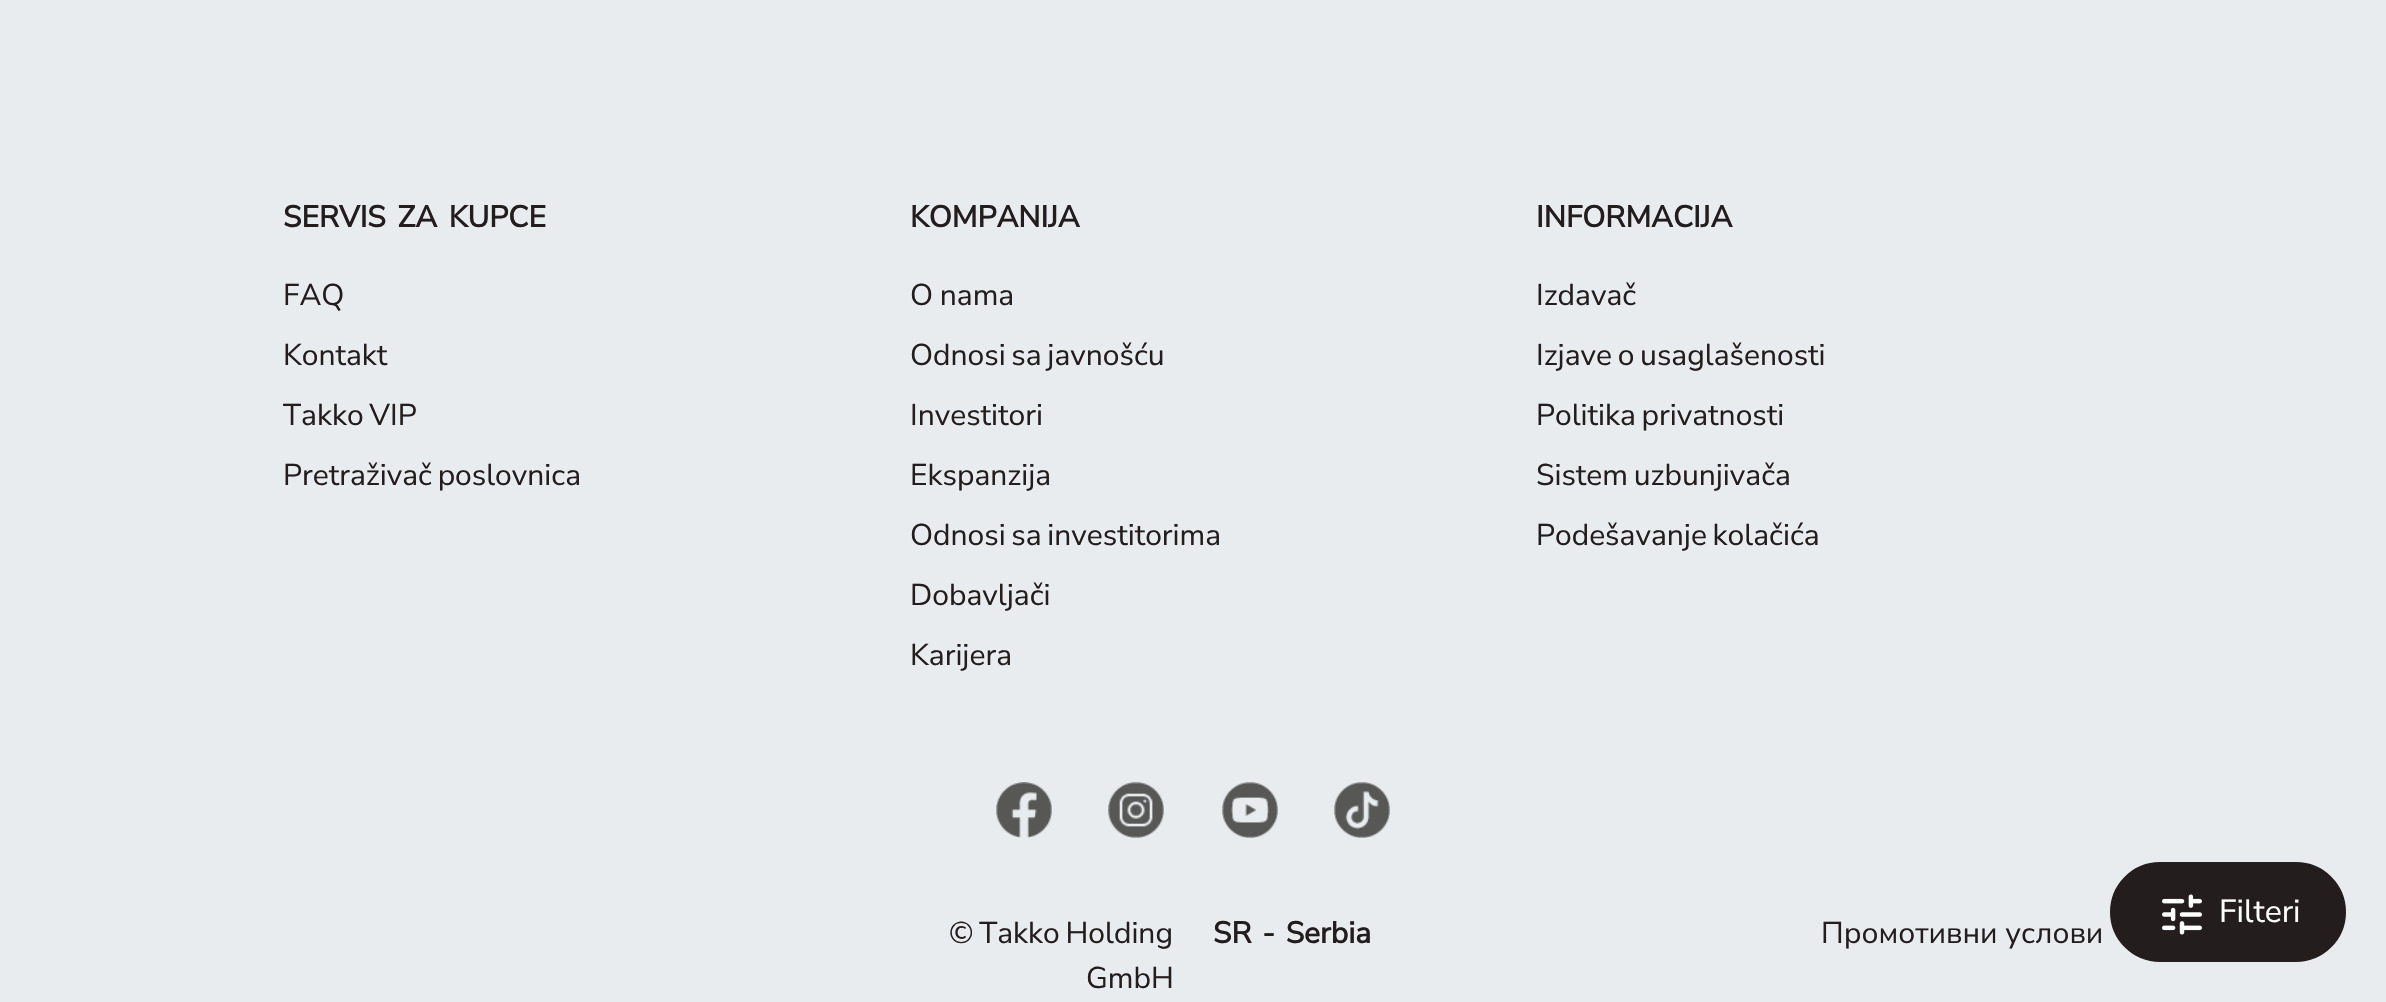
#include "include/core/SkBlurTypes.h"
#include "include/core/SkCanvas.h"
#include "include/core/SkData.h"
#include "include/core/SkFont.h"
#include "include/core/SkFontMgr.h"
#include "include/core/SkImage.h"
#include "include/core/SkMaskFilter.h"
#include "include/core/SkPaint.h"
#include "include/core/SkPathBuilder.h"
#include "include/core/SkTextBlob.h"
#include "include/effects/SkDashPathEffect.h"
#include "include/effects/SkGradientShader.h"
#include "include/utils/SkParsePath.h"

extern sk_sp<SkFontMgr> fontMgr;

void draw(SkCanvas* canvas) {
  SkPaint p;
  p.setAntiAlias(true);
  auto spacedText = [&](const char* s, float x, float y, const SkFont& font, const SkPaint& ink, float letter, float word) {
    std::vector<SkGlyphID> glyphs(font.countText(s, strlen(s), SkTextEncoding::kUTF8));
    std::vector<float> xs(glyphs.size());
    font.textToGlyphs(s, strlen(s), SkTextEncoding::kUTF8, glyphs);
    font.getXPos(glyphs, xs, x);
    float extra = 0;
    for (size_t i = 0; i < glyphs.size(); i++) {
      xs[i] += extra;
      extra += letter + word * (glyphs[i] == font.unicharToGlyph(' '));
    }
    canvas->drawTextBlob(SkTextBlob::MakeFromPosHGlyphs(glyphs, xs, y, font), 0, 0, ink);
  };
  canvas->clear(SkColorSetRGB(233, 236, 239));
  canvas->drawImageRect(SkImages::DeferredFromEncodedData(SkData::MakeFromFileName("images/1.png")), SkRect::MakeLTRB(996, 782, 1052, 838), SkSamplingOptions());
  canvas->drawImageRect(SkImages::DeferredFromEncodedData(SkData::MakeFromFileName("images/2.png")), SkRect::MakeLTRB(1108, 782, 1164, 838), SkSamplingOptions());
  canvas->drawImageRect(SkImages::DeferredFromEncodedData(SkData::MakeFromFileName("images/3.png")), SkRect::MakeLTRB(1222, 782, 1278, 838), SkSamplingOptions());
  canvas->drawImageRect(SkImages::DeferredFromEncodedData(SkData::MakeFromFileName("images/4.png")), SkRect::MakeLTRB(1334, 782, 1390, 838), SkSamplingOptions());
  p.setColor(SkColorSetRGB(36, 29, 29));
  canvas->drawRoundRect(SkRect::MakeLTRB(2112, 864, 2344, 960), 48, 48, p);
  p.setStyle(SkPaint::kStroke_Style);
  p.setStrokeWidth(4);
  canvas->drawRoundRect(SkRect::MakeLTRB(2112, 864, 2344, 960), 48, 48, p);
  canvas->drawImageRect(SkImages::DeferredFromEncodedData(SkData::MakeFromFileName("images/5.png")), SkRect::MakeLTRB(2162, 894, 2202, 935), SkSamplingOptions());
  SkFont font1(fontMgr->matchFamilyStyle("Nunito Sans", SkFontStyle::Bold()), 30);
  font1.setSubpixel(true);
  p.setStyle(SkPaint::kFill_Style);
  spacedText("SERVIS ZA KUPCE", 283, 227, font1, p, 0, 4);
  SkFont font2(fontMgr->matchFamilyStyle("Nunito Sans", SkFontStyle::Normal()), 30);
  font2.setSubpixel(true);
  canvas->drawString("FAQ", 283, 305, font2, p);
  canvas->drawString("Kontakt", 283, 365, font2, p);
  spacedText("Takko VIP", 283, 425, font2, p, 0, -2);
  spacedText("Pretraživač poslovnica", 283, 485, font2, p, 0, -2);
  canvas->drawString("KOMPANIJA", 910, 227, font1, p);
  spacedText("O nama", 910, 305, font2, p, 0, -1);
  spacedText("Odnosi sa javnošću", 910, 365, font2, p, 0, -2);
  canvas->drawString("Investitori", 910, 425, font2, p);
  canvas->drawString("Ekspanzija", 910, 485, font2, p);
  spacedText("Odnosi sa investitorima", 910, 545, font2, p, 0, -2);
  canvas->drawString("Dobavljači", 910, 605, font2, p);
  canvas->drawString("Karijera", 910, 665, font2, p);
  canvas->drawString("INFORMACIJA", 1536, 227, font1, p);
  canvas->drawString("Izdavač", 1536, 305, font2, p);
  spacedText("Izjave o usaglašenosti", 1536, 365, font2, p, 0, -2);
  spacedText("Politika privatnosti", 1536, 425, font2, p, 0, -2);
  spacedText("Sistem uzbunjivača", 1536, 485, font2, p, 0, -2);
  spacedText("Podešavanje kolačića", 1536, 545, font2, p, 0, -2);
  spacedText("© Takko Holding", 949, 943, font2, p, 0, -2);
  canvas->drawString("GmbH", 1086, 988, font2, p);
  spacedText("SR - Serbia", 1213, 943, font1, p, 0, 3);
  canvas->drawString("Промотивни услови", 1821, 943, font2, p);
  SkFont font3(fontMgr->matchFamilyStyle("Nunito Sans", SkFontStyle::Normal()), 32);
  font3.setSubpixel(true);
  p.setColor(SK_ColorWHITE);
  canvas->drawString("Filteri", 2219, 922, font3, p);
}
